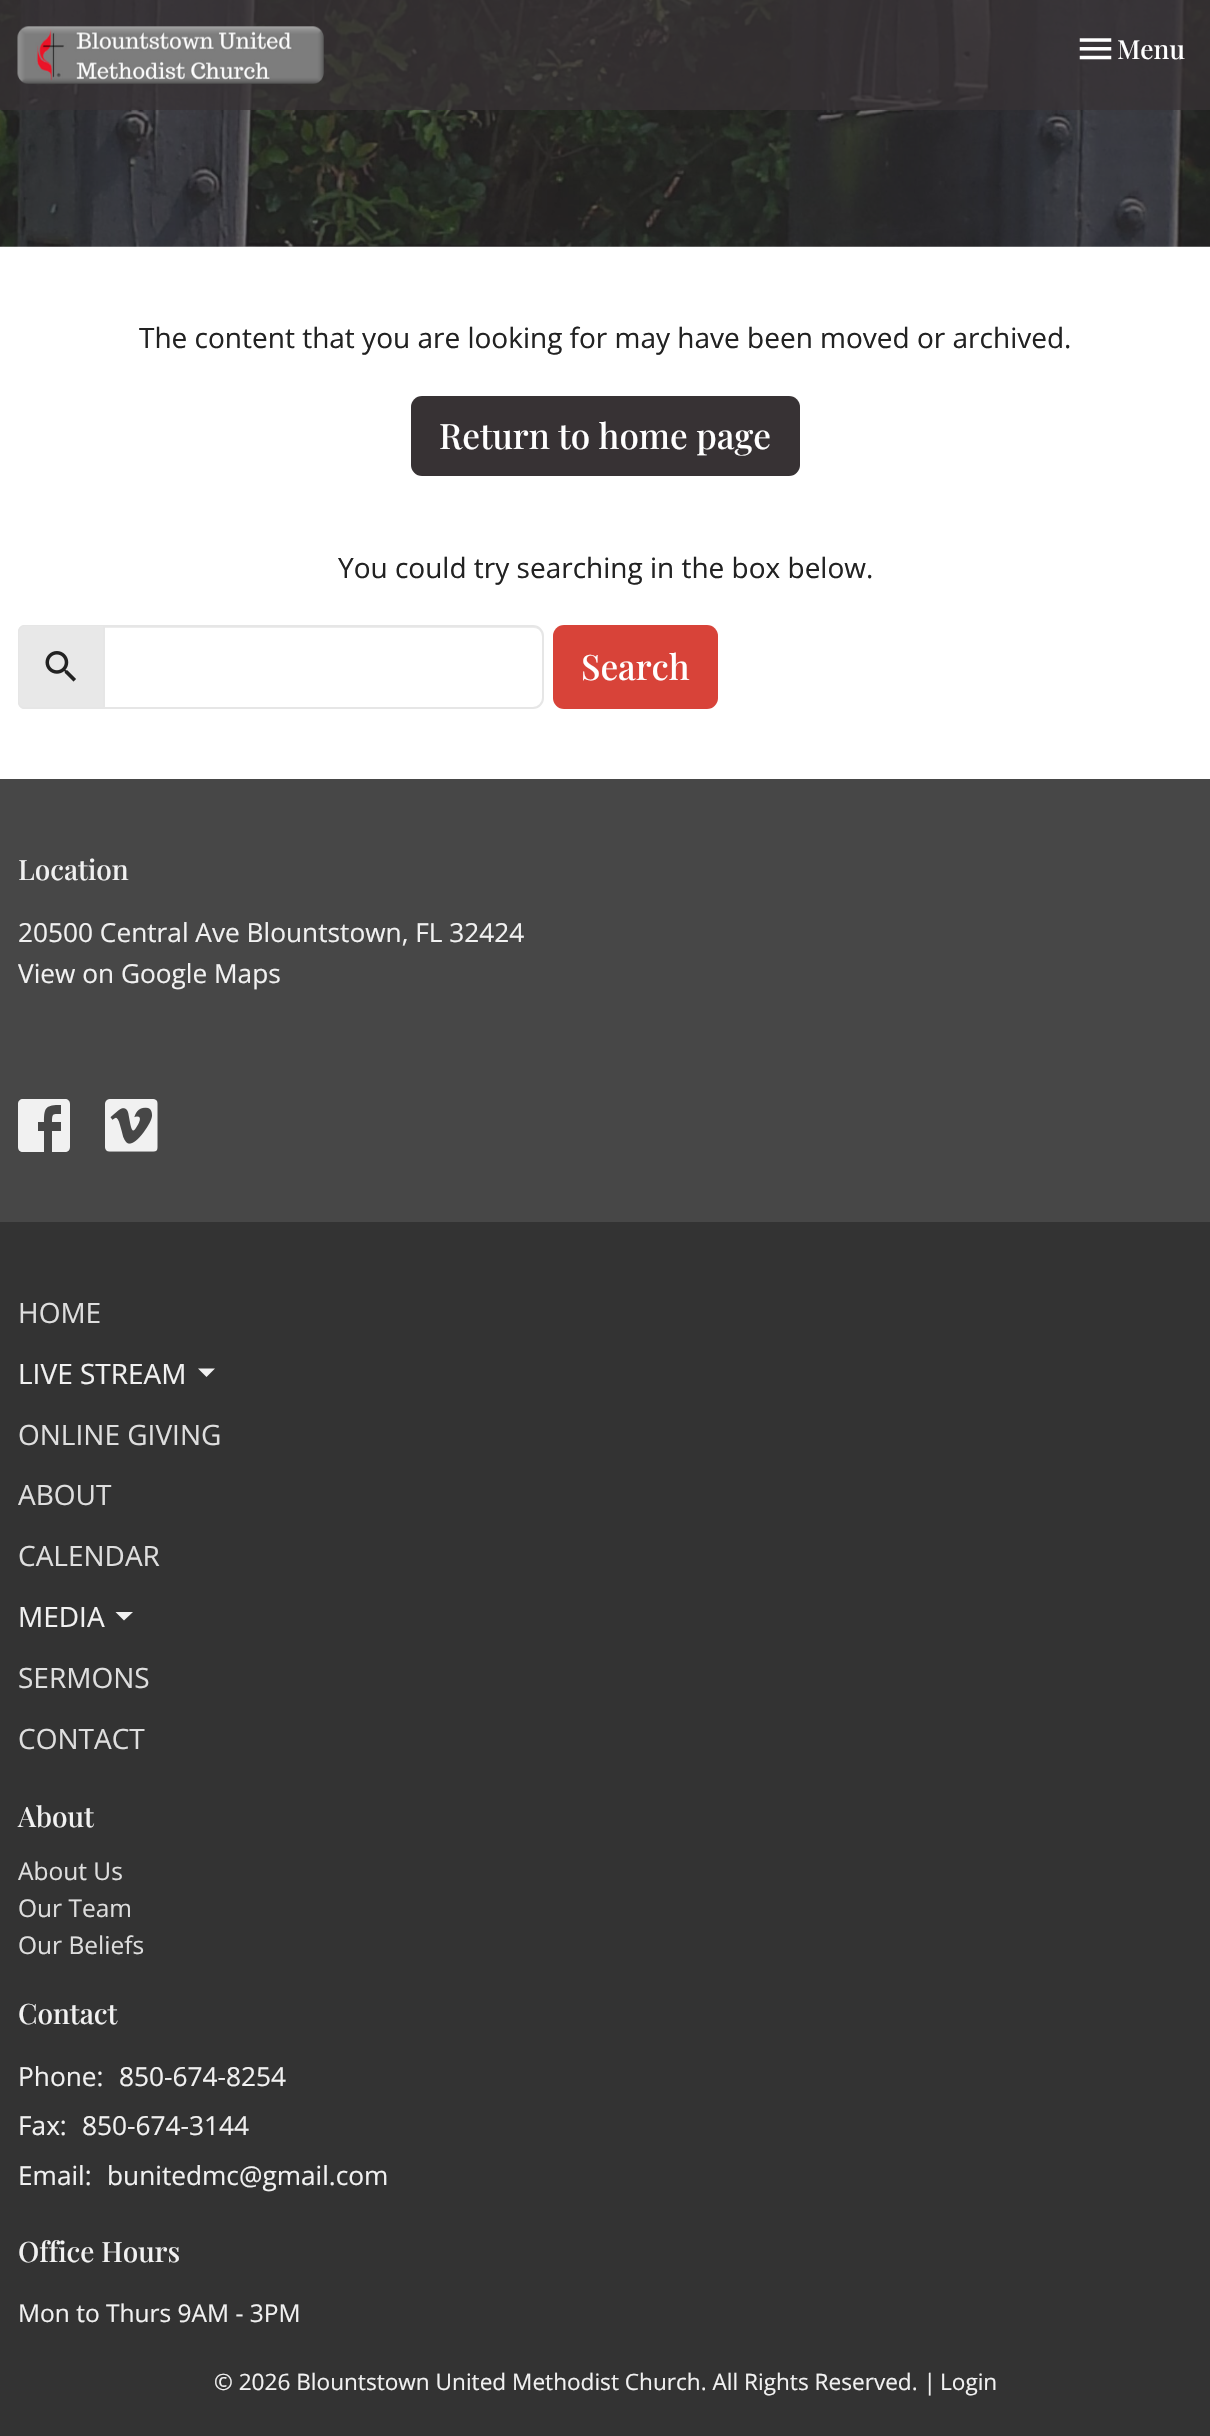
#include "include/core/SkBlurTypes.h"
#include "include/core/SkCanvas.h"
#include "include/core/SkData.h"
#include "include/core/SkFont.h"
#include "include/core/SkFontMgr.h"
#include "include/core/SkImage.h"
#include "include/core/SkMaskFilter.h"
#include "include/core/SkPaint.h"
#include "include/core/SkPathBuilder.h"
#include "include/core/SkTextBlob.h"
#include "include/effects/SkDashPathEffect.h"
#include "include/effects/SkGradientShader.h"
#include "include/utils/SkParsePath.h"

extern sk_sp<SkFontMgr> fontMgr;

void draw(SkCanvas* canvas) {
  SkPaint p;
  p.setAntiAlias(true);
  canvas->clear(SK_ColorWHITE);
  canvas->drawImageRect(SkImages::DeferredFromEncodedData(SkData::MakeFromFileName("images/1.png")), SkRect::MakeLTRB(0, 0, 1210, 247), SkSamplingOptions());
  p.setColor(SkColorSetARGB(191, 55, 50, 52));
  canvas->drawRect(SkRect::MakeLTRB(0, 0, 1210, 110), p);
  canvas->drawImageRect(SkImages::DeferredFromEncodedData(SkData::MakeFromFileName("images/2.png")), SkRect::MakeLTRB(17, 26, 324, 84), SkSamplingOptions());
  canvas->drawImageRect(SkImages::DeferredFromEncodedData(SkData::MakeFromFileName("images/3.png")), SkRect::MakeLTRB(1079, 38, 1112, 60), SkSamplingOptions());
  p.setColor(SkColorSetRGB(55, 50, 52));
  canvas->drawRoundRect(SkRect::MakeLTRB(411, 396, 800, 476), 11, 11, p);
  p.setColor(SkColorSetRGB(232, 232, 232));
  canvas->drawPath(SkPathBuilder().moveTo(25, 625).lineTo(103, 625).lineTo(103, 709).lineTo(25, 709).cubicTo(21, 709, 18, 706, 18, 702).lineTo(18, 632).cubicTo(18, 628, 21, 625, 25, 625).close().detach(), p);
  p.setColor(SkColorSetRGB(230, 230, 230));
  canvas->drawPath(SkPathBuilder(SkPathFillType::kEvenOdd).moveTo(24, 625).lineTo(103, 625).lineTo(103, 709).lineTo(24, 709).cubicTo(21, 709, 18, 706, 18, 702).lineTo(18, 632).cubicTo(18, 628, 21, 625, 24, 625).close().moveTo(24, 626).lineTo(103, 626).lineTo(103, 707).lineTo(24, 707).cubicTo(22, 707, 19, 705, 19, 702).lineTo(19, 632).cubicTo(19, 629, 22, 626, 24, 626).close().detach(), p);
  canvas->drawImageRect(SkImages::DeferredFromEncodedData(SkData::MakeFromFileName("images/4.png")), SkRect::MakeLTRB(45, 651, 76, 682), SkSamplingOptions());
  p.setColor(SkColorSetRGB(236, 236, 236));
  canvas->drawPath(SkPathBuilder().moveTo(105, 628).lineTo(534, 628).cubicTo(539, 628, 542, 632, 542, 637).lineTo(542, 703).cubicTo(543, 701, 543, 700, 543, 698).lineTo(543, 636).cubicTo(543, 631, 539, 627, 534, 627).lineTo(105, 627).close().detach(), p);
  p.setStyle(SkPaint::kStroke_Style);
  p.setStrokeWidth(2);
  p.setColor(SkColorSetRGB(230, 230, 230));
  canvas->drawPath(SkPathBuilder().moveTo(104, 626).lineTo(533, 626).cubicTo(538.5f, 626, 543, 630.5f, 543, 636).lineTo(543, 698).cubicTo(543, 703.5f, 538.5f, 708, 533, 708).lineTo(104, 708).close().detach(), p);
  p.setStyle(SkPaint::kFill_Style);
  p.setColor(SkColorSetRGB(216, 67, 57));
  canvas->drawRoundRect(SkRect::MakeLTRB(553, 625, 718, 709), 11, 11, p);
  p.setColor(SkColorSetRGB(71, 71, 71));
  canvas->drawRect(SkRect::MakeLTRB(0, 779, 1210, 1222), p);
  p.setColor(SkColorSetRGB(241, 241, 241));
  canvas->drawPath(SkPathBuilder().moveTo(61, 1105).lineTo(61, 1114).cubicTo(53, 1114, 52, 1113, 52, 1122).lineTo(61, 1122).lineTo(61, 1131).lineTo(52, 1131).lineTo(52, 1152).lineTo(65, 1152).cubicTo(68, 1152, 70, 1150, 70, 1147).lineTo(70, 1104).cubicTo(70, 1101, 68, 1099, 65, 1099).lineTo(23, 1099).cubicTo(20, 1099, 18, 1101, 18, 1104).lineTo(18, 1147).cubicTo(18, 1150, 20, 1152, 23, 1152).lineTo(44, 1152).lineTo(44, 1131).lineTo(38, 1131).lineTo(38, 1122).lineTo(44, 1122).cubicTo(44, 1107, 46, 1105, 61, 1105).close().detach(), p);
  canvas->drawImageRect(SkImages::DeferredFromEncodedData(SkData::MakeFromFileName("images/5.png")), SkRect::MakeLTRB(105, 1099, 158, 1152), SkSamplingOptions());
  p.setColor(SkColorSetRGB(51, 51, 51));
  canvas->drawRect(SkRect::MakeLTRB(0, 1222, 1210, 2436), p);
  p.setColor(SkColorSetRGB(241, 241, 241));
  canvas->drawPath(SkPathBuilder().moveTo(198, 1368.5f).lineTo(206.5f, 1377).lineTo(215, 1368.5f).close().detach(), p);
  canvas->drawPath(SkPathBuilder().moveTo(115.5f, 1612).lineTo(124, 1620.5f).lineTo(133, 1612).close().detach(), p);
  SkFont font1(fontMgr->matchFamilyStyle("Playfair Display", SkFontStyle(500, SkFontStyle::kNormal_Width, SkFontStyle::kUpright_Slant)), 26.25f);
  font1.setSubpixel(true);
  p.setColor(SK_ColorWHITE);
  canvas->drawString("Menu", 1117, 59, font1, p);
  SkFont font2(fontMgr->matchFamilyStyle("Open Sans", SkFontStyle::Normal()), 28);
  font2.setSubpixel(true);
  p.setColor(SkColorSetRGB(34, 34, 34));
  canvas->drawString("The content that you are looking for may have been moved or archived.", 139, 348, font2, p);
  SkFont font3(fontMgr->matchFamilyStyle("Playfair Display", SkFontStyle(500, SkFontStyle::kNormal_Width, SkFontStyle::kUpright_Slant)), 35);
  font3.setSubpixel(true);
  p.setColor(SK_ColorWHITE);
  canvas->drawString("Return to home page", 439, 449, font3, p);
  p.setColor(SkColorSetRGB(34, 34, 34));
  canvas->drawString("You could try searching in the box below.", 338, 578, font2, p);
  p.setColor(SK_ColorWHITE);
  canvas->drawString("Search", 581, 680, font3, p);
  SkFont font4(fontMgr->matchFamilyStyle("Playfair Display", SkFontStyle(500, SkFontStyle::kNormal_Width, SkFontStyle::kUpright_Slant)), 28);
  font4.setSubpixel(true);
  p.setColor(SkColorSetRGB(241, 241, 241));
  canvas->drawString("Location", 18, 880, font4, p);
  SkFont font5(fontMgr->matchFamilyStyle("Open Sans", SkFontStyle::Normal()), 26.25f);
  font5.setSubpixel(true);
  canvas->drawString("20500 Central Ave Blountstown, FL 32424", 18, 942, font5, p);
  canvas->drawString("View on Google Maps", 18, 983, font5, p);
  p.setColor(SkColorSetRGB(222, 222, 222));
  canvas->drawString("HOME", 18, 1323, font2, p);
  p.setColor(SkColorSetRGB(241, 241, 241));
  canvas->drawString("LIVE STREAM", 18, 1384, font2, p);
  p.setColor(SkColorSetRGB(222, 222, 222));
  canvas->drawString("ONLINE GIVING", 18, 1445, font2, p);
  canvas->drawString("ABOUT", 18, 1505, font2, p);
  canvas->drawString("CALENDAR", 18, 1566, font2, p);
  p.setColor(SkColorSetRGB(241, 241, 241));
  canvas->drawString("MEDIA", 18, 1627, font2, p);
  p.setColor(SkColorSetRGB(222, 222, 222));
  canvas->drawString("SERMONS", 18, 1688, font2, p);
  canvas->drawString("CONTACT", 18, 1749, font2, p);
  p.setColor(SkColorSetRGB(241, 241, 241));
  canvas->drawString("About", 18, 1827, font4, p);
  SkFont font6(fontMgr->matchFamilyStyle("Open Sans", SkFontStyle::Normal()), 24.5f);
  font6.setSubpixel(true);
  p.setColor(SkColorSetRGB(222, 222, 222));
  canvas->drawString("About Us", 18, 1880, font6, p);
  canvas->drawString("Our Team", 18, 1917, font6, p);
  canvas->drawString("Our Beliefs", 18, 1954, font6, p);
  p.setColor(SkColorSetRGB(241, 241, 241));
  canvas->drawString("Contact", 18, 2024, font4, p);
  canvas->drawString("Phone:", 18, 2086, font5, p);
  canvas->drawString("850-674-8254", 119, 2086, font5, p);
  canvas->drawString("Fax:", 18, 2135, font5, p);
  canvas->drawString("850-674-3144", 82, 2135, font5, p);
  canvas->drawString("Email:", 18, 2185, font5, p);
  canvas->drawString("bunitedmc@gmail.com", 107, 2185, font5, p);
  canvas->drawString("Office Hours", 18, 2262, font4, p);
  canvas->drawString("Mon to Thurs 9AM - 3PM", 18, 2322, font6, p);
  SkFont font7(fontMgr->matchFamilyStyle("Open Sans", SkFontStyle::Normal()), 22.6f);
  font7.setSubpixel(true);
  canvas->drawString("© 2026 Blountstown United Methodist Church. All Rights Reserved. |", 214, 2390, font7, p);
  canvas->drawString("Login", 940, 2390, font7, p);
}
